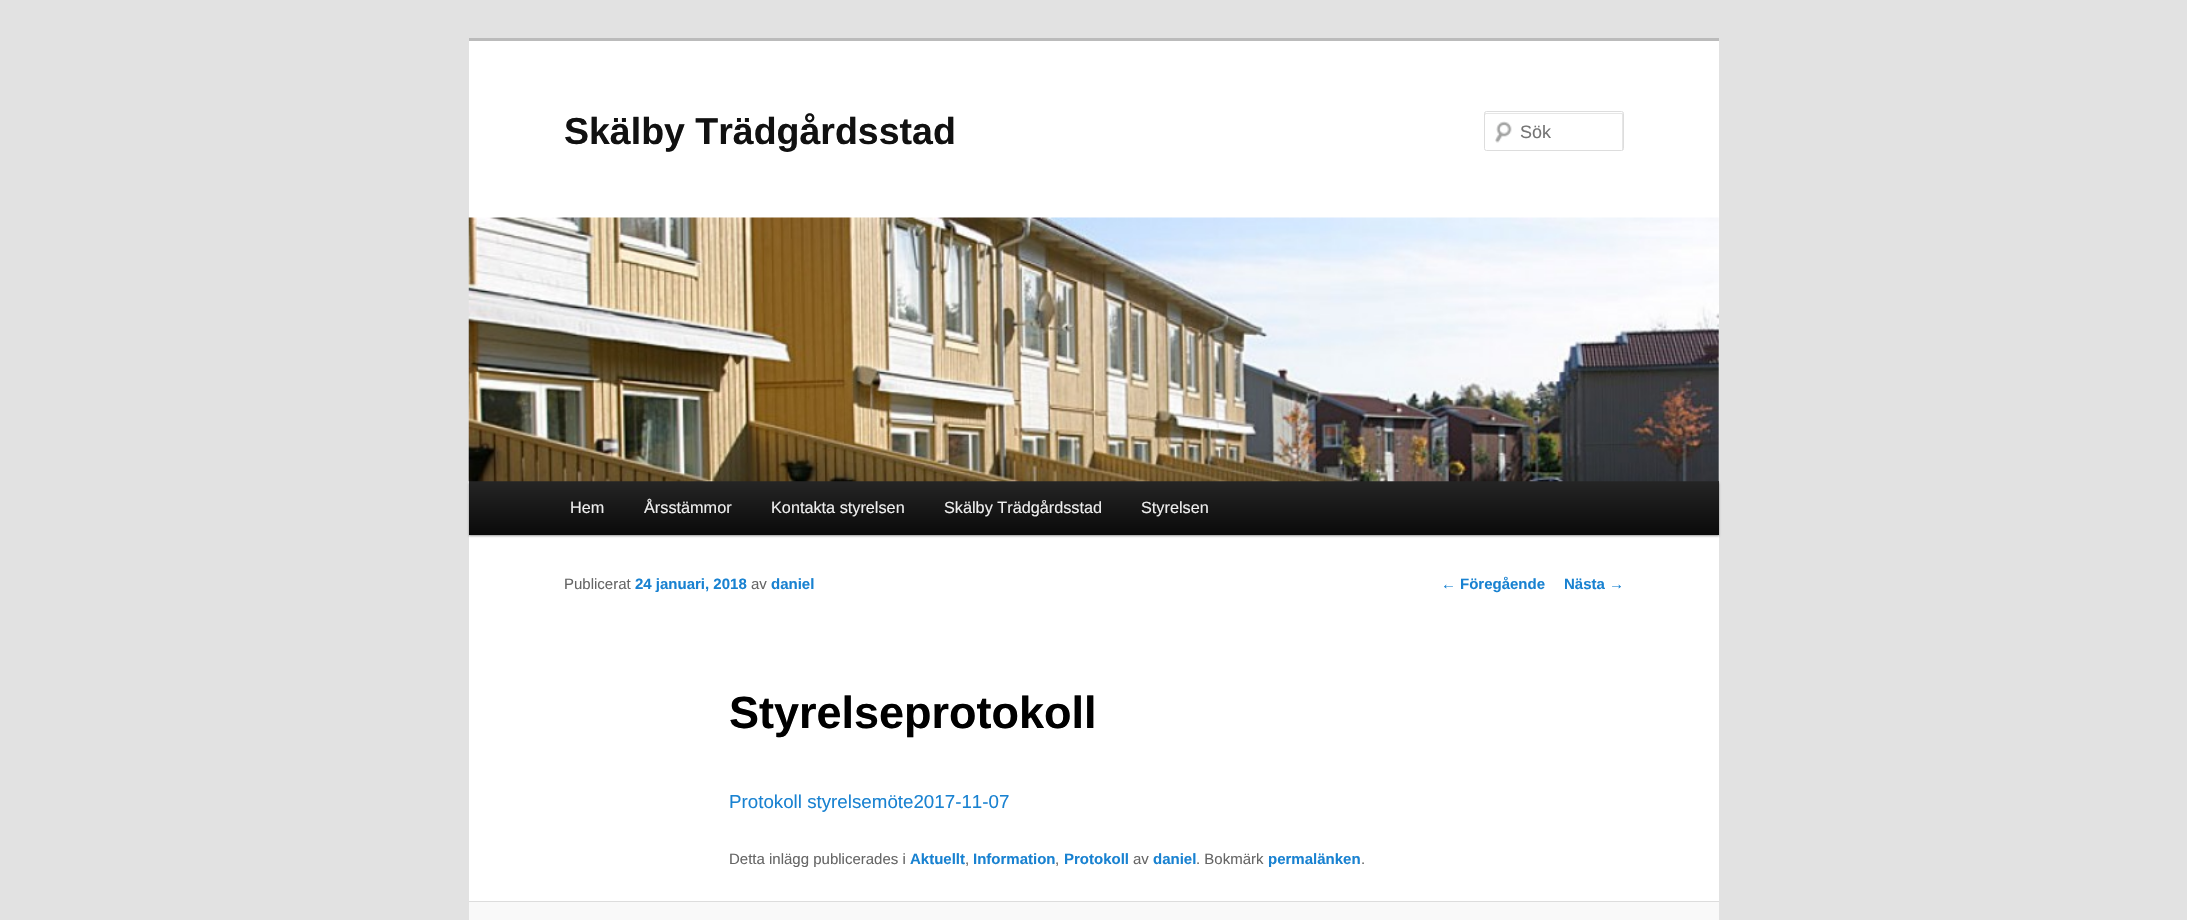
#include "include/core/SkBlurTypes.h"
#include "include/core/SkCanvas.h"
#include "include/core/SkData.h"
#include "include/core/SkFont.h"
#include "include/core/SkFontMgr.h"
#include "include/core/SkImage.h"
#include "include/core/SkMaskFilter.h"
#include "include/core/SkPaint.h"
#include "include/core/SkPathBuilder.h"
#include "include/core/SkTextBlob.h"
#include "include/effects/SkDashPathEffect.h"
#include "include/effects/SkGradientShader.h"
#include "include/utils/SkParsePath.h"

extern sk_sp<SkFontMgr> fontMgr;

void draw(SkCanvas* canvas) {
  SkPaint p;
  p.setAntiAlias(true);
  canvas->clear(SkColorSetRGB(226, 226, 226));
  p.setColor(SK_ColorWHITE);
  canvas->drawRect(SkRect::MakeLTRB(469, 41, 1719, 901), p);
  p.setColor(SkColorSetRGB(187, 187, 187));
  canvas->drawRect(SkRect::MakeLTRB(469, 38, 1719, 41), p);
  canvas->drawImageRect(SkImages::DeferredFromEncodedData(SkData::MakeFromFileName("images/1.png")), SkRect::MakeLTRB(1495, 121, 1512, 143), SkSamplingOptions());
  p.setColor(SkColorSetRGB(230, 230, 230));
  canvas->drawPath(SkPathBuilder().moveTo(1486, 114).lineTo(1621, 114).cubicTo(1622, 114, 1622, 114, 1622, 115).lineTo(1622, 150).cubicTo(1623, 150, 1623, 150, 1623, 149).lineTo(1623, 114).cubicTo(1623, 113, 1623, 113, 1622, 113).lineTo(1486, 113).cubicTo(1485, 113, 1485, 113, 1485, 114).lineTo(1485, 115).close().detach(), p);
  p.setStyle(SkPaint::kStroke_Style);
  p.setStrokeWidth(1);
  p.setColor(SkColorSetRGB(221, 221, 221));
  canvas->drawRoundRect(SkRect::MakeLTRB(1484.5f, 111.5f, 1623.5f, 150.5f), 2, 2, p);
  p.setStyle(SkPaint::kFill_Style);
  p.setColor(SkColorSetARGB(102, 0, 0, 0));
  p.setMaskFilter(SkMaskFilter::MakeBlur(kNormal_SkBlurStyle, 1));
  canvas->drawRect(SkRect::MakeLTRB(469, 483, 1719, 536), p);
  p.setMaskFilter(nullptr);
  {
    const SkColor colors[] = {SkColorSetRGB(37, 37, 37), SkColorSetRGB(10, 10, 10)};
    const float stops[] = {0, 1};
    const SkPoint ends[] = {{1094, 481}, {1094, 535}};
    p.setShader(SkGradientShader::MakeLinear(ends, colors, stops, 2, SkTileMode::kClamp));
    p.setAlpha(255);
  }
  canvas->drawRect(SkRect::MakeLTRB(469, 481, 1719, 535), p);
  canvas->drawImageRect(SkImages::DeferredFromEncodedData(SkData::MakeFromFileName("images/2.png")), SkRect::MakeLTRB(468, 217, 1719, 482), SkSamplingOptions());
  p.setShader(nullptr);
  p.setColor(SkColorSetRGB(249, 249, 249));
  canvas->drawRect(SkRect::MakeLTRB(469, 902, 1719, 920), p);
  p.setColor(SkColorSetRGB(221, 221, 221));
  canvas->drawRect(SkRect::MakeLTRB(469, 901, 1719, 902), p);
  SkFont font1(fontMgr->matchFamilyStyle("Liberation Sans", SkFontStyle::Bold()), 37.5f);
  font1.setSubpixel(true);
  p.setColor(SkColorSetRGB(17, 17, 17));
  canvas->drawString("Skälby Trädgårdsstad", 564, 144, font1, p);
  SkFont font2(fontMgr->matchFamilyStyle("Liberation Sans", SkFontStyle::Normal()), 18);
  font2.setSubpixel(true);
  p.setColor(SkColorSetRGB(117, 117, 117));
  canvas->drawString("Sök", 1520, 138, font2, p);
  SkFont font3(fontMgr->matchFamilyStyle("Liberation Sans", SkFontStyle::Normal()), 16.25f);
  font3.setSubpixel(true);
  p.setColor(SkColorSetRGB(238, 238, 238));
  canvas->drawString("Hem", 570, 513, font3, p);
  canvas->drawString("Årsstämmor", 644, 513, font3, p);
  canvas->drawString("Kontakta styrelsen", 771, 513, font3, p);
  canvas->drawString("Skälby Trädgårdsstad", 944, 513, font3, p);
  canvas->drawString("Styrelsen", 1141, 513, font3, p);
  SkFont font4(fontMgr->matchFamilyStyle("Liberation Sans", SkFontStyle::Normal()), 15);
  font4.setSubpixel(true);
  p.setColor(SkColorSetRGB(102, 102, 102));
  canvas->drawString("Publicerat", 564, 589, font4, p);
  SkFont font5(fontMgr->matchFamilyStyle("Liberation Sans", SkFontStyle::Bold()), 15);
  font5.setSubpixel(true);
  p.setColor(SkColorSetRGB(25, 130, 209));
  canvas->drawString("24 januari, 2018", 635, 589, font5, p);
  p.setColor(SkColorSetRGB(102, 102, 102));
  canvas->drawString("av", 751, 589, font4, p);
  p.setColor(SkColorSetRGB(25, 130, 209));
  canvas->drawString("daniel", 771, 589, font5, p);
  SkFont font6(fontMgr->matchFamilyStyle("Liberation Sans", SkFontStyle::Bold()), 45);
  font6.setSubpixel(true);
  p.setColor(SK_ColorBLACK);
  canvas->drawString("Styrelseprotokoll", 729, 728, font6, p);
  SkFont font7(fontMgr->matchFamilyStyle("Liberation Sans", SkFontStyle::Normal()), 18.75f);
  font7.setSubpixel(true);
  p.setColor(SkColorSetRGB(25, 130, 209));
  canvas->drawString("Protokoll styrelsemöte2017-11-07", 729, 808, font7, p);
  p.setColor(SkColorSetRGB(102, 102, 102));
  canvas->drawString("Detta inlägg publicerades i", 729, 864, font4, p);
  p.setColor(SkColorSetRGB(25, 130, 209));
  canvas->drawString("Aktuellt", 910, 864, font5, p);
  p.setColor(SkColorSetRGB(102, 102, 102));
  canvas->drawString(",", 965, 864, font4, p);
  p.setColor(SkColorSetRGB(25, 130, 209));
  canvas->drawString("Information", 973, 864, font5, p);
  p.setColor(SkColorSetRGB(102, 102, 102));
  canvas->drawString(",", 1055, 864, font4, p);
  p.setColor(SkColorSetRGB(25, 130, 209));
  canvas->drawString("Protokoll", 1064, 864, font5, p);
  p.setColor(SkColorSetRGB(102, 102, 102));
  canvas->drawString("av", 1133, 864, font4, p);
  p.setColor(SkColorSetRGB(25, 130, 209));
  canvas->drawString("daniel", 1153, 864, font5, p);
  p.setColor(SkColorSetRGB(102, 102, 102));
  canvas->drawString(". Bokmärk", 1196, 864, font4, p);
  p.setColor(SkColorSetRGB(25, 130, 209));
  canvas->drawString("permalänken", 1268, 864, font5, p);
  p.setColor(SkColorSetRGB(102, 102, 102));
  canvas->drawString(".", 1361, 864, font4, p);
  p.setColor(SkColorSetRGB(25, 130, 209));
  canvas->drawString("←", 1441, 589, font4, p);
  canvas->drawString("Föregående", 1460, 589, font5, p);
  canvas->drawString("Nästa", 1564, 589, font5, p);
  canvas->drawString("→", 1609, 589, font4, p);
}
